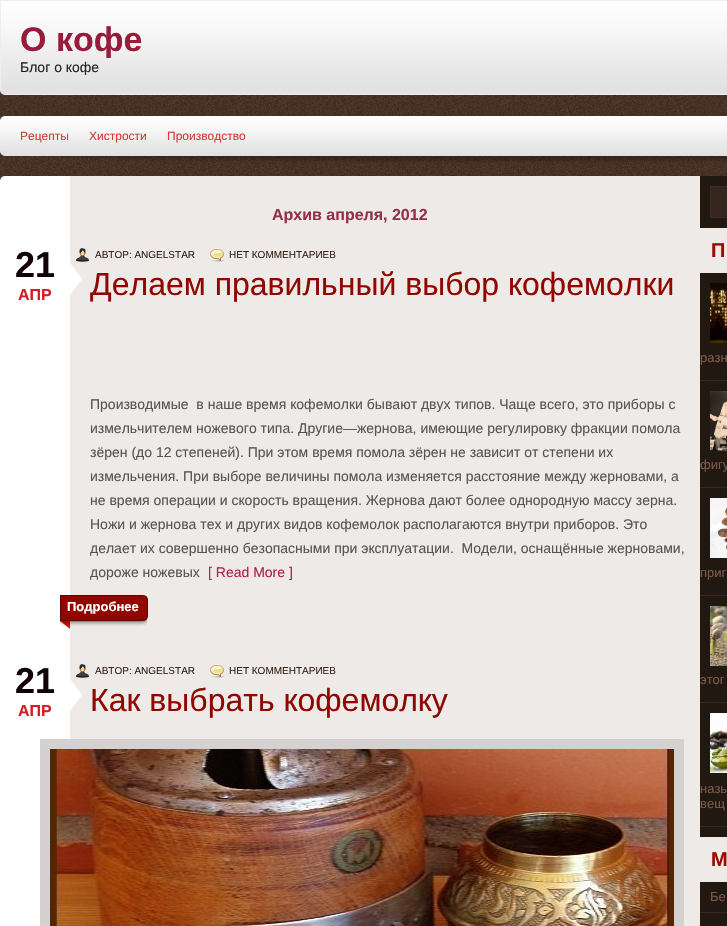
#include "include/core/SkBlurTypes.h"
#include "include/core/SkCanvas.h"
#include "include/core/SkData.h"
#include "include/core/SkFont.h"
#include "include/core/SkFontMgr.h"
#include "include/core/SkImage.h"
#include "include/core/SkMaskFilter.h"
#include "include/core/SkPaint.h"
#include "include/core/SkPathBuilder.h"
#include "include/core/SkTextBlob.h"
#include "include/effects/SkDashPathEffect.h"
#include "include/effects/SkGradientShader.h"
#include "include/utils/SkParsePath.h"

extern sk_sp<SkFontMgr> fontMgr;

void draw(SkCanvas* canvas) {
  SkPaint p;
  p.setAntiAlias(true);
  canvas->clear(SK_ColorWHITE);
  canvas->drawImageRect(SkImages::DeferredFromEncodedData(SkData::MakeFromFileName("images/1.png")), SkRect::MakeLTRB(0, 96, 727, 181), SkSamplingOptions());
  canvas->drawImageRect(SkImages::DeferredFromEncodedData(SkData::MakeFromFileName("images/2.png")), SkRect::MakeLTRB(0, 0, 727, 96), SkSamplingOptions());
  canvas->drawImageRect(SkImages::DeferredFromEncodedData(SkData::MakeFromFileName("images/3.png")), SkRect::MakeLTRB(0, 116, 727, 166), SkSamplingOptions());
  canvas->drawImageRect(SkImages::DeferredFromEncodedData(SkData::MakeFromFileName("images/4.png")), SkRect::MakeLTRB(0, 176, 727, 926), SkSamplingOptions());
  canvas->drawImageRect(SkImages::DeferredFromEncodedData(SkData::MakeFromFileName("images/5.png")), SkRect::MakeLTRB(70, 263, 82, 295), SkSamplingOptions());
  canvas->drawImageRect(SkImages::DeferredFromEncodedData(SkData::MakeFromFileName("images/6.png")), SkRect::MakeLTRB(76, 248, 89, 262), SkSamplingOptions());
  canvas->drawImageRect(SkImages::DeferredFromEncodedData(SkData::MakeFromFileName("images/7.png")), SkRect::MakeLTRB(210, 249, 224, 262), SkSamplingOptions());
  canvas->drawImageRect(SkImages::DeferredFromEncodedData(SkData::MakeFromFileName("images/8.png")), SkRect::MakeLTRB(60, 595, 148, 629), SkSamplingOptions());
  canvas->drawImageRect(SkImages::DeferredFromEncodedData(SkData::MakeFromFileName("images/5.png")), SkRect::MakeLTRB(70, 679, 82, 711), SkSamplingOptions());
  canvas->drawImageRect(SkImages::DeferredFromEncodedData(SkData::MakeFromFileName("images/6.png")), SkRect::MakeLTRB(76, 664, 89, 678), SkSamplingOptions());
  canvas->drawImageRect(SkImages::DeferredFromEncodedData(SkData::MakeFromFileName("images/7.png")), SkRect::MakeLTRB(210, 665, 224, 678), SkSamplingOptions());
  p.setColor(SkColorSetRGB(212, 209, 208));
  canvas->drawRect(SkRect::MakeLTRB(40, 739, 684, 926), p);
  canvas->drawImageRect(SkImages::DeferredFromEncodedData(SkData::MakeFromFileName("images/9.png")), SkRect::MakeLTRB(50, 749, 674, 926), SkSamplingOptions());
  p.setColor(SkColorSetRGB(54, 38, 29));
  canvas->drawRect(SkRect::MakeLTRB(710.5f, 186.5f, 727.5f, 217.5f), p);
  p.setStyle(SkPaint::kStroke_Style);
  p.setStrokeWidth(1);
  p.setColor(SkColorSetRGB(62, 44, 33));
  canvas->drawRect(SkRect::MakeLTRB(710.5f, 186.5f, 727.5f, 217.5f), p);
  p.setStyle(SkPaint::kFill_Style);
  p.setColor(SkColorSetRGB(237, 234, 232));
  canvas->drawRect(SkRect::MakeLTRB(700.5f, 228.5f, 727.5f, 272.5f), p);
  p.setStyle(SkPaint::kStroke_Style);
  canvas->drawRect(SkRect::MakeLTRB(700.5f, 228.5f, 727.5f, 272.5f), p);
  p.setStyle(SkPaint::kFill_Style);
  p.setColor(SkColorSetRGB(58, 41, 31));
  canvas->drawRect(SkRect::MakeLTRB(700, 380, 727, 381), p);
  canvas->drawImageRect(SkImages::DeferredFromEncodedData(SkData::MakeFromFileName("images/10.png")), SkRect::MakeLTRB(710, 283, 727, 343), SkSamplingOptions());
  canvas->drawRect(SkRect::MakeLTRB(700, 487, 727, 488), p);
  canvas->drawImageRect(SkImages::DeferredFromEncodedData(SkData::MakeFromFileName("images/11.png")), SkRect::MakeLTRB(710, 391, 727, 451), SkSamplingOptions());
  canvas->drawRect(SkRect::MakeLTRB(700, 595, 727, 596), p);
  canvas->drawImageRect(SkImages::DeferredFromEncodedData(SkData::MakeFromFileName("images/12.png")), SkRect::MakeLTRB(710, 498, 727, 558), SkSamplingOptions());
  canvas->drawRect(SkRect::MakeLTRB(700, 702, 727, 703), p);
  canvas->drawImageRect(SkImages::DeferredFromEncodedData(SkData::MakeFromFileName("images/13.png")), SkRect::MakeLTRB(710, 606, 727, 666), SkSamplingOptions());
  canvas->drawRect(SkRect::MakeLTRB(700, 826, 727, 827), p);
  canvas->drawImageRect(SkImages::DeferredFromEncodedData(SkData::MakeFromFileName("images/14.png")), SkRect::MakeLTRB(710, 713, 727, 773), SkSamplingOptions());
  p.setColor(SkColorSetRGB(237, 234, 232));
  canvas->drawRect(SkRect::MakeLTRB(700.5f, 837.5f, 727.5f, 881.5f), p);
  p.setStyle(SkPaint::kStroke_Style);
  canvas->drawRect(SkRect::MakeLTRB(700.5f, 837.5f, 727.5f, 881.5f), p);
  p.setStyle(SkPaint::kFill_Style);
  p.setColor(SkColorSetRGB(58, 41, 31));
  canvas->drawRect(SkRect::MakeLTRB(700, 912, 727, 913), p);
  SkFont font1(fontMgr->matchFamilyStyle("Liberation Sans", SkFontStyle::Bold()), 34);
  font1.setSubpixel(true);
  p.setColor(SkColorSetRGB(153, 27, 59));
  canvas->drawString("О кофе", 20, 51, font1, p);
  SkFont font2(fontMgr->matchFamilyStyle("Liberation Sans", SkFontStyle::Normal()), 14);
  font2.setSubpixel(true);
  p.setColor(SkColorSetRGB(34, 34, 34));
  canvas->drawString("Блог о кофе", 20, 72, font2, p);
  SkFont font3(fontMgr->matchFamilyStyle("Liberation Sans", SkFontStyle::Normal()), 12);
  font3.setSubpixel(true);
  p.setColor(SkColorSetRGB(207, 58, 51));
  canvas->drawString("Рецепты", 20, 140, font3, p);
  canvas->drawString("Хистрости", 89, 140, font3, p);
  canvas->drawString("Производство", 167, 140, font3, p);
  SkFont font4(fontMgr->matchFamilyStyle("Liberation Sans", SkFontStyle::Bold()), 16);
  font4.setSubpixel(true);
  p.setColor(SkColorSetRGB(150, 47, 73));
  canvas->drawString("Архив апреля, 2012", 272, 220, font4, p);
  SkFont font5(fontMgr->matchFamilyStyle("Liberation Sans", SkFontStyle::Bold()), 36);
  font5.setSubpixel(true);
  p.setColor(SkColorSetRGB(18, 2, 3));
  canvas->drawString("21", 15, 277, font5, p);
  p.setColor(SkColorSetRGB(217, 26, 32));
  canvas->drawString("АПР", 18, 300, font4, p);
  SkFont font6(fontMgr->matchFamilyStyle("Liberation Sans", SkFontStyle::Normal()), 10);
  font6.setSubpixel(true);
  p.setColor(SkColorSetRGB(53, 36, 26));
  canvas->drawString("АВТОР: ANGELSTAR", 95, 258, font6, p);
  canvas->drawString("НЕТ КОММЕНТАРИЕВ", 229, 258, font6, p);
  SkFont font7(fontMgr->matchFamilyStyle("Liberation Sans", SkFontStyle::Normal()), 32);
  font7.setSubpixel(true);
  p.setColor(SkColorSetRGB(144, 7, 1));
  canvas->drawString("Делаем правильный выбор кофемолки", 90, 295, font7, p);
  p.setColor(SkColorSetRGB(85, 85, 85));
  canvas->drawString("Производимые  в наше время кофемолки бывают двух типов. Чаще всего, это приборы с", 90, 409, font2, p);
  canvas->drawString("измельчителем ножевого типа. Другие—жернова, имеющие регулировку фракции помола", 90, 433, font2, p);
  canvas->drawString("зёрен (до 12 степеней). При этом время помола зёрен не зависит от степени их", 90, 457, font2, p);
  canvas->drawString("измельчения. При выборе величины помола изменяется расстояние между жерновами, а", 90, 481, font2, p);
  canvas->drawString("не время операции и скорость вращения. Жернова дают более однородную массу зерна.", 90, 505, font2, p);
  canvas->drawString("Ножи и жернова тех и других видов кофемолок располагаются внутри приборов. Это", 90, 529, font2, p);
  canvas->drawString("делает их совершенно безопасными при эксплуатации.  Модели, оснащённые жерновами,", 90, 553, font2, p);
  canvas->drawString("дороже ножевых", 90, 577, font2, p);
  p.setColor(SkColorSetRGB(178, 31, 72));
  canvas->drawString("[ Read More ]", 208, 577, font2, p);
  SkFont font8(fontMgr->matchFamilyStyle("Liberation Sans", SkFontStyle::Bold()), 13);
  font8.setSubpixel(true);
  p.setColor(SK_ColorWHITE);
  canvas->drawString("Подробнее", 67, 611, font8, p);
  p.setColor(SkColorSetRGB(18, 2, 3));
  canvas->drawString("21", 15, 693, font5, p);
  p.setColor(SkColorSetRGB(217, 26, 32));
  canvas->drawString("АПР", 18, 716, font4, p);
  p.setColor(SkColorSetRGB(53, 36, 26));
  canvas->drawString("АВТОР: ANGELSTAR", 95, 674, font6, p);
  canvas->drawString("НЕТ КОММЕНТАРИЕВ", 229, 674, font6, p);
  p.setColor(SkColorSetRGB(144, 7, 1));
  canvas->drawString("Как выбрать кофемолку", 90, 711, font7, p);
  SkFont font9(fontMgr->matchFamilyStyle("Liberation Sans", SkFontStyle::Bold()), 20);
  font9.setSubpixel(true);
  p.setColor(SkColorSetRGB(160, 8, 1));
  canvas->drawString("П", 711, 257, font9, p);
  SkFont font10(fontMgr->matchFamilyStyle("Liberation Sans", SkFontStyle::Normal()), 13);
  font10.setSubpixel(true);
  p.setColor(SkColorSetRGB(125, 91, 70));
  canvas->drawString("разн", 700, 362, font10, p);
  canvas->drawString("фигу", 700, 469, font10, p);
  canvas->drawString("приг", 700, 577, font10, p);
  canvas->drawString("этог", 700, 684, font10, p);
  canvas->drawString("назы", 700, 793, font10, p);
  canvas->drawString("вещ", 700, 808, font10, p);
  p.setColor(SkColorSetRGB(160, 8, 1));
  canvas->drawString("М", 711, 866, font9, p);
  p.setColor(SkColorSetRGB(125, 91, 70));
  canvas->drawString("Бе", 710, 901, font10, p);
}
